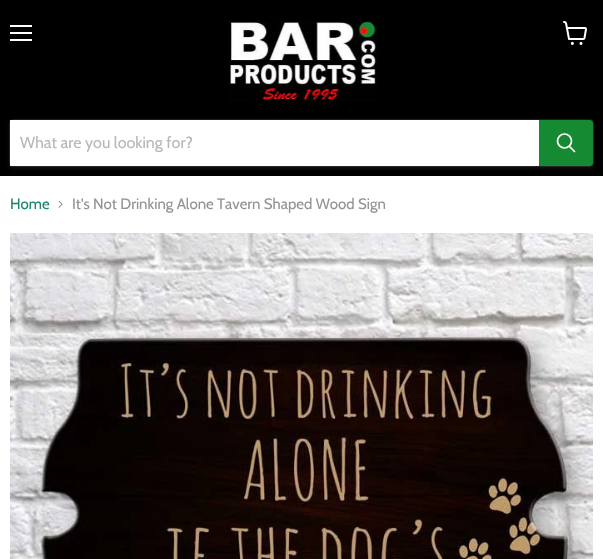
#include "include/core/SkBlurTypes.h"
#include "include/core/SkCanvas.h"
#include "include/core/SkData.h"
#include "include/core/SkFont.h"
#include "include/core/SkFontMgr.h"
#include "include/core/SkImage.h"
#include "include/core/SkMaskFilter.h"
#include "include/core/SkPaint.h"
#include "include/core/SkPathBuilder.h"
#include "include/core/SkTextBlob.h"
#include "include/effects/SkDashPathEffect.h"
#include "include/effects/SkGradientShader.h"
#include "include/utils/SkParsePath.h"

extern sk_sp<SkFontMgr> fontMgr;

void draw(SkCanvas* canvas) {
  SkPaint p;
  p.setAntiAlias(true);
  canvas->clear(SK_ColorWHITE);
  p.setColor(SK_ColorBLACK);
  canvas->drawRect(SkRect::MakeLTRB(0, 0, 603, 176), p);
  p.setColor(SK_ColorWHITE);
  canvas->drawRect(SkRect::MakeLTRB(10, 25, 32, 27), p);
  canvas->drawRect(SkRect::MakeLTRB(10, 32, 32, 34), p);
  canvas->drawRect(SkRect::MakeLTRB(10, 39, 32, 41), p);
  canvas->drawImageRect(SkImages::DeferredFromEncodedData(SkData::MakeFromFileName("images/1.png")), SkRect::MakeLTRB(563, 21, 587, 45), SkSamplingOptions());
  canvas->drawImageRect(SkImages::DeferredFromEncodedData(SkData::MakeFromFileName("images/2.png")), SkRect::MakeLTRB(228, 21, 378, 105), SkSamplingOptions());
  p.setColor(SkColorSetARGB(28, 128, 128, 128));
  p.setMaskFilter(SkMaskFilter::MakeBlur(kNormal_SkBlurStyle, 1.5f));
  canvas->drawRoundRect(SkRect::MakeLTRB(9, 121, 594, 169), 4, 4, p);
  p.setMaskFilter(nullptr);
  p.setStyle(SkPaint::kStroke_Style);
  p.setStrokeWidth(1);
  p.setColor(SkColorSetARGB(51, 128, 128, 128));
  canvas->drawRoundRect(SkRect::MakeLTRB(9.5f, 119.5f, 593.5f, 166.5f), 3.5f, 3.5f, p);
  p.setStyle(SkPaint::kFill_Style);
  p.setColor(SK_ColorWHITE);
  canvas->drawRect(SkRect::MakeLTRB(10, 120, 539, 166), p);
  p.setColor(SkColorSetRGB(21, 138, 51));
  canvas->drawPath(SkPathBuilder().moveTo(539.5f, 120.5f).lineTo(590, 120.5f).cubicTo(591.5f, 120.5f, 592.5f, 121.5f, 592.5f, 123).lineTo(592.5f, 163).cubicTo(592.5f, 164.5f, 591.5f, 165.5f, 590, 165.5f).lineTo(539.5f, 165.5f).close().detach(), p);
  p.setStyle(SkPaint::kStroke_Style);
  canvas->drawPath(SkPathBuilder().moveTo(539.5f, 120.5f).lineTo(590, 120.5f).cubicTo(591.5f, 120.5f, 592.5f, 121.5f, 592.5f, 123).lineTo(592.5f, 163).cubicTo(592.5f, 164.5f, 591.5f, 165.5f, 590, 165.5f).lineTo(539.5f, 165.5f).close().detach(), p);
  p.setStrokeWidth(1.7f);
  p.setStrokeCap(SkPaint::kRound_Cap);
  p.setColor(SK_ColorWHITE);
  canvas->drawPath(SkPathBuilder().moveTo(574.5f, 151.5f).lineTo(569.5f, 146.5f).detach(), p);
  p.setStrokeCap(SkPaint::kButt_Cap);
  canvas->drawCircle(564.5f, 141, 7, p);
  canvas->drawImageRect(SkImages::DeferredFromEncodedData(SkData::MakeFromFileName("images/3.png")), SkRect::MakeLTRB(58, 201, 63, 208), SkSamplingOptions());
  canvas->drawImageRect(SkImages::DeferredFromEncodedData(SkData::MakeFromFileName("images/4.png")), SkRect::MakeLTRB(10, 233, 593, 559), SkSamplingOptions());
  SkFont font1(fontMgr->matchFamilyStyle("Cabin", SkFontStyle::Normal()), 16);
  font1.setSubpixel(true);
  p.setStyle(SkPaint::kFill_Style);
  p.setColor(SkColorSetRGB(184, 184, 184));
  canvas->drawString("What are you looking for?", 20, 148, font1, p);
  SkFont font2(fontMgr->matchFamilyStyle("Cabin", SkFontStyle::Normal()), 15);
  font2.setSubpixel(true);
  p.setColor(SkColorSetRGB(30, 133, 112));
  canvas->drawString("Home", 10, 209, font2, p);
  p.setColor(SkColorSetRGB(148, 148, 148));
  canvas->drawString("It's Not Drinking Alone Tavern Shaped Wood Sign", 72, 209, font2, p);
}
